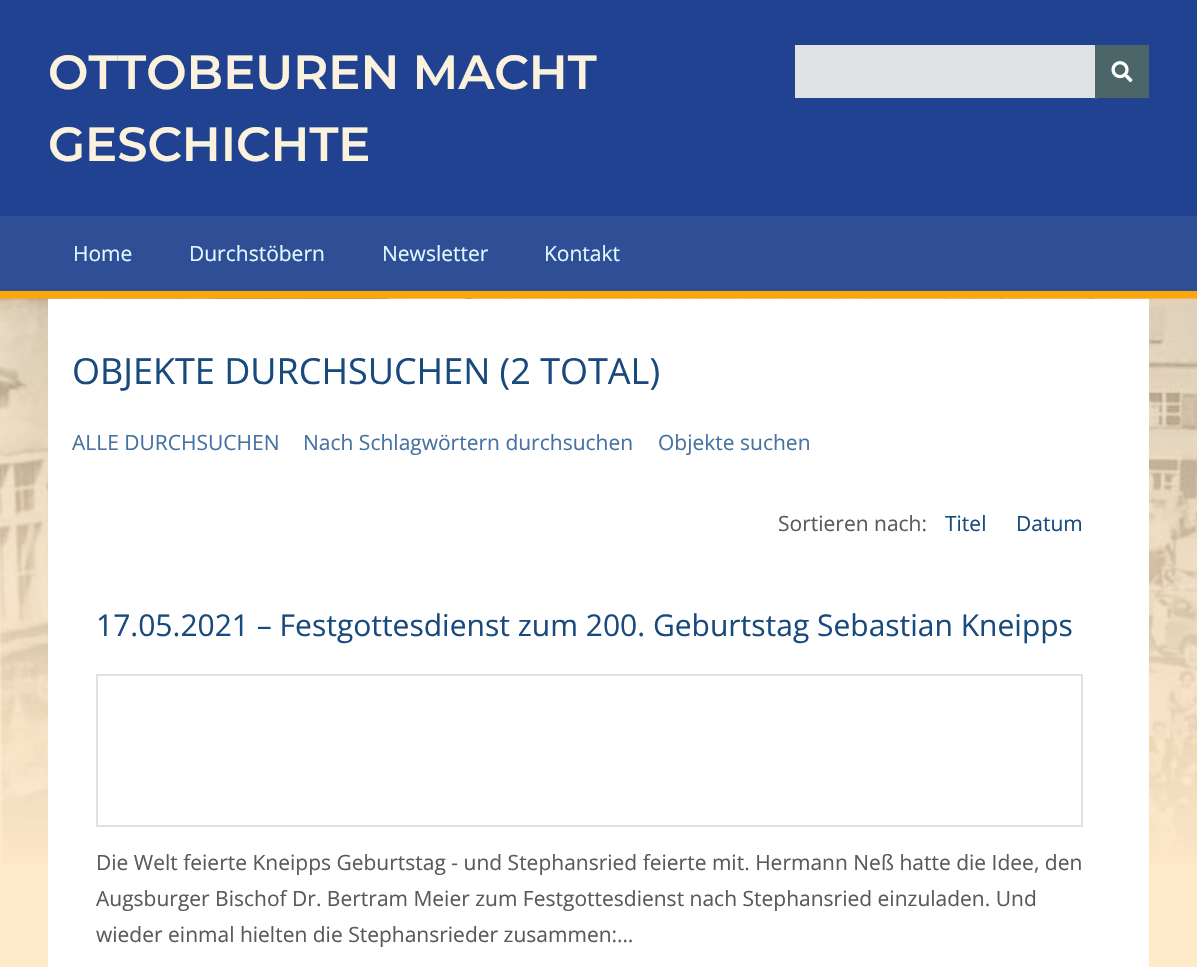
#include "include/core/SkBlurTypes.h"
#include "include/core/SkCanvas.h"
#include "include/core/SkData.h"
#include "include/core/SkFont.h"
#include "include/core/SkFontMgr.h"
#include "include/core/SkImage.h"
#include "include/core/SkMaskFilter.h"
#include "include/core/SkPaint.h"
#include "include/core/SkPathBuilder.h"
#include "include/core/SkTextBlob.h"
#include "include/effects/SkDashPathEffect.h"
#include "include/effects/SkGradientShader.h"
#include "include/utils/SkParsePath.h"

extern sk_sp<SkFontMgr> fontMgr;

void draw(SkCanvas* canvas) {
  SkPaint p;
  p.setAntiAlias(true);
  canvas->clear(SkColorSetRGB(255, 234, 202));
  p.setColor(SkColorSetRGB(32, 66, 145));
  canvas->drawRect(SkRect::MakeLTRB(0, 0, 1197, 216), p);
  p.setColor(SkColorSetRGB(77, 104, 167));
  canvas->drawRect(SkRect::MakeLTRB(1095, 98, 1097, 99), p);
  p.setColor(SkColorSetRGB(223, 226, 226));
  canvas->drawRect(SkRect::MakeLTRB(795, 45, 1095, 98), p);
  p.setColor(SkColorSetRGB(75, 101, 105));
  canvas->drawRect(SkRect::MakeLTRB(1095, 45, 1149, 98), p);
  canvas->drawImageRect(SkImages::DeferredFromEncodedData(SkData::MakeFromFileName("images/1.png")), SkRect::MakeLTRB(1111, 61, 1133, 83), SkSamplingOptions());
  p.setColor(SkColorSetRGB(48, 78, 149));
  canvas->drawRect(SkRect::MakeLTRB(0, 216, 1197, 291), p);
  p.setColor(SkColorSetRGB(251, 167, 9));
  canvas->drawRect(SkRect::MakeLTRB(0, 291, 1197, 299), p);
  canvas->drawImageRect(SkImages::DeferredFromEncodedData(SkData::MakeFromFileName("images/2.png")), SkRect::MakeLTRB(0, 298, 1197, 865), SkSamplingOptions());
  p.setColor(SK_ColorWHITE);
  canvas->drawRect(SkRect::MakeLTRB(48, 299, 1149, 967), p);
  p.setStyle(SkPaint::kStroke_Style);
  p.setStrokeWidth(2);
  p.setColor(SkColorSetRGB(223, 226, 226));
  canvas->drawRect(SkRect::MakeLTRB(97, 675, 1082, 826), p);
  SkFont font1(fontMgr->matchFamilyStyle("Montserrat", SkFontStyle(600, SkFontStyle::kNormal_Width, SkFontStyle::kUpright_Slant)), 48);
  font1.setSubpixel(true);
  p.setStyle(SkPaint::kFill_Style);
  p.setColor(SkColorSetRGB(251, 242, 221));
  canvas->drawString("OTTOBEUREN MACHT", 48, 89, font1, p);
  canvas->drawString("GESCHICHTE", 48, 161, font1, p);
  SkFont font2(fontMgr->matchFamilyStyle("Open Sans", SkFontStyle::Normal()), 21);
  font2.setSubpixel(true);
  p.setColor(SkColorSetRGB(222, 249, 255));
  canvas->drawString("Home", 73, 261, font2, p);
  canvas->drawString("Durchstöbern", 189, 261, font2, p);
  canvas->drawString("Newsletter", 382, 261, font2, p);
  canvas->drawString("Kontakt", 544, 261, font2, p);
  SkFont font3(fontMgr->matchFamilyStyle("Open Sans", SkFontStyle::Normal()), 36);
  font3.setSubpixel(true);
  p.setColor(SkColorSetRGB(25, 74, 126));
  canvas->drawString("OBJEKTE DURCHSUCHEN (2 TOTAL)", 72, 384, font3, p);
  p.setColor(SkColorSetRGB(70, 114, 162));
  canvas->drawString("ALLE DURCHSUCHEN", 72, 450, font2, p);
  canvas->drawString("Nach Schlagwörtern durchsuchen", 303, 450, font2, p);
  canvas->drawString("Objekte suchen", 658, 450, font2, p);
  p.setColor(SkColorSetRGB(90, 90, 90));
  canvas->drawString("Sortieren nach:", 778, 531, font2, p);
  p.setColor(SkColorSetRGB(25, 74, 126));
  canvas->drawString("Titel", 945, 531, font2, p);
  canvas->drawString("Datum", 1016, 531, font2, p);
  SkFont font4(fontMgr->matchFamilyStyle("Open Sans", SkFontStyle::Normal()), 30);
  font4.setSubpixel(true);
  canvas->drawString("17.05.2021 – Festgottesdienst zum 200. Geburtstag Sebastian Kneipps", 96, 636, font4, p);
  p.setColor(SkColorSetRGB(90, 90, 90));
  canvas->drawString("Die Welt feierte Kneipps Geburtstag - und Stephansried feierte mit. Hermann Neß hatte die Idee, den", 96, 870, font2, p);
  canvas->drawString("Augsburger Bischof Dr. Bertram Meier zum Festgottesdienst nach Stephansried einzuladen. Und", 96, 906, font2, p);
  canvas->drawString("wieder einmal hielten die Stephansrieder zusammen:…", 96, 942, font2, p);
}
